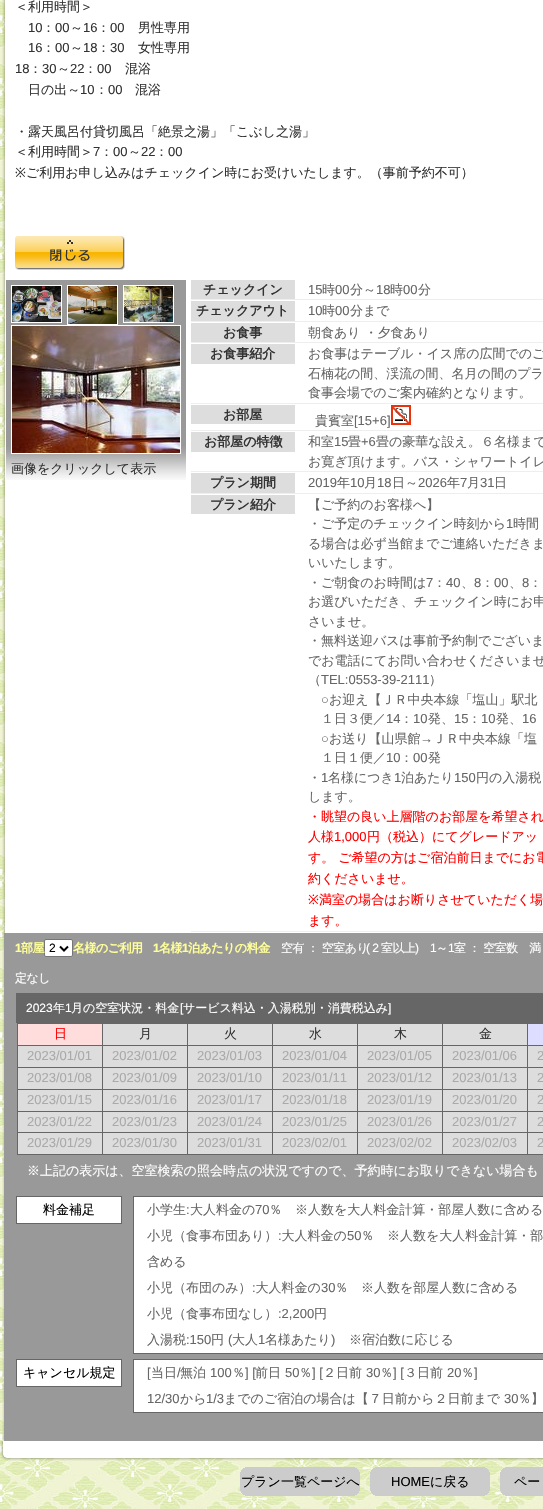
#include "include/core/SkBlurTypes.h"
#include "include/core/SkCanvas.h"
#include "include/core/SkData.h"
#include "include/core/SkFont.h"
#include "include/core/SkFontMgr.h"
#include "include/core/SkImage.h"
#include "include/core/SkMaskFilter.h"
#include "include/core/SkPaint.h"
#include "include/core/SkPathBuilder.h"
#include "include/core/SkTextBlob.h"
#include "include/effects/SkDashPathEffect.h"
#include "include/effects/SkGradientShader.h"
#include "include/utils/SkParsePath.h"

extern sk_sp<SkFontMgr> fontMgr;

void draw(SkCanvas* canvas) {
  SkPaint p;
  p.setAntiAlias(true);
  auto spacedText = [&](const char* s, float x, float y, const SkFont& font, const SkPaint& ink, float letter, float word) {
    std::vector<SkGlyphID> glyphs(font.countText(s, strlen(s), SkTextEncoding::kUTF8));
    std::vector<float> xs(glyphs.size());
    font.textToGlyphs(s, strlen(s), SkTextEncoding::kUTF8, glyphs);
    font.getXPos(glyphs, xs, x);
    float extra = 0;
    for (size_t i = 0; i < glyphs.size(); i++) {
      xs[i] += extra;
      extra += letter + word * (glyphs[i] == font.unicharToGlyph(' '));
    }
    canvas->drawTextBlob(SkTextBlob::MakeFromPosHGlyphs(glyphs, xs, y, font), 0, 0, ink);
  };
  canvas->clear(SK_ColorWHITE);
  canvas->drawImageRect(SkImages::DeferredFromEncodedData(SkData::MakeFromFileName("images/1.png")), SkRect::MakeLTRB(0, 0, 543, 1509), SkSamplingOptions());
  canvas->drawImageRect(SkImages::DeferredFromEncodedData(SkData::MakeFromFileName("images/2.png")), SkRect::MakeLTRB(2, 0, 543, 933), SkSamplingOptions());
  canvas->drawImageRect(SkImages::DeferredFromEncodedData(SkData::MakeFromFileName("images/3.png")), SkRect::MakeLTRB(15, 236, 125, 270), SkSamplingOptions());
  canvas->drawImageRect(SkImages::DeferredFromEncodedData(SkData::MakeFromFileName("images/4.png")), SkRect::MakeLTRB(6, 280, 186, 480), SkSamplingOptions());
  p.setStyle(SkPaint::kStroke_Style);
  p.setStrokeWidth(1);
  p.setColor(SK_ColorWHITE);
  canvas->drawRect(SkRect::MakeLTRB(11.5f, 285.5f, 61.5f, 322.5f), p);
  canvas->drawImageRect(SkImages::DeferredFromEncodedData(SkData::MakeFromFileName("images/5.png")), SkRect::MakeLTRB(12, 286, 61, 322), SkSamplingOptions());
  canvas->drawRect(SkRect::MakeLTRB(67.5f, 285.5f, 117.5f, 324.5f), p);
  canvas->drawImageRect(SkImages::DeferredFromEncodedData(SkData::MakeFromFileName("images/6.png")), SkRect::MakeLTRB(68, 286, 117, 324), SkSamplingOptions());
  canvas->drawRect(SkRect::MakeLTRB(123.5f, 285.5f, 173.5f, 322.5f), p);
  canvas->drawImageRect(SkImages::DeferredFromEncodedData(SkData::MakeFromFileName("images/7.png")), SkRect::MakeLTRB(124, 286, 173, 322), SkSamplingOptions());
  canvas->drawRect(SkRect::MakeLTRB(11.5f, 325.5f, 180.5f, 453.5f), p);
  canvas->drawImageRect(SkImages::DeferredFromEncodedData(SkData::MakeFromFileName("images/8.png")), SkRect::MakeLTRB(12, 326, 180, 453), SkSamplingOptions());
  p.setStyle(SkPaint::kFill_Style);
  p.setColor(SkColorSetRGB(221, 221, 221));
  canvas->drawRect(SkRect::MakeLTRB(191, 280, 295, 299), p);
  p.setColor(SkColorSetRGB(238, 238, 238));
  canvas->drawRect(SkRect::MakeLTRB(191, 299, 543, 300), p);
  p.setColor(SkColorSetRGB(221, 221, 221));
  canvas->drawRect(SkRect::MakeLTRB(191, 301, 295, 321), p);
  p.setColor(SkColorSetRGB(238, 238, 238));
  canvas->drawRect(SkRect::MakeLTRB(191, 321, 543, 322), p);
  p.setColor(SkColorSetRGB(221, 221, 221));
  canvas->drawRect(SkRect::MakeLTRB(191, 323, 295, 342), p);
  p.setColor(SkColorSetRGB(238, 238, 238));
  canvas->drawRect(SkRect::MakeLTRB(191, 342, 543, 343), p);
  p.setColor(SkColorSetRGB(221, 221, 221));
  canvas->drawRect(SkRect::MakeLTRB(191, 344, 295, 364), p);
  p.setColor(SkColorSetRGB(238, 238, 238));
  canvas->drawRect(SkRect::MakeLTRB(191, 403, 543, 404), p);
  p.setColor(SkColorSetRGB(221, 221, 221));
  canvas->drawRect(SkRect::MakeLTRB(191, 405, 295, 424), p);
  p.setColor(SkColorSetRGB(238, 238, 238));
  canvas->drawRect(SkRect::MakeLTRB(191, 430, 543, 431), p);
  canvas->drawImageRect(SkImages::DeferredFromEncodedData(SkData::MakeFromFileName("images/9.png")), SkRect::MakeLTRB(391, 405, 411, 425), SkSamplingOptions());
  p.setColor(SkColorSetRGB(221, 221, 221));
  canvas->drawRect(SkRect::MakeLTRB(191, 432, 295, 452), p);
  p.setColor(SkColorSetRGB(238, 238, 238));
  canvas->drawRect(SkRect::MakeLTRB(191, 471, 543, 472), p);
  p.setColor(SkColorSetRGB(221, 221, 221));
  canvas->drawRect(SkRect::MakeLTRB(191, 473, 295, 493), p);
  p.setColor(SkColorSetRGB(238, 238, 238));
  canvas->drawRect(SkRect::MakeLTRB(191, 493, 543, 494), p);
  p.setColor(SkColorSetRGB(221, 221, 221));
  canvas->drawRect(SkRect::MakeLTRB(191, 495, 295, 514), p);
  p.setColor(SkColorSetRGB(238, 238, 238));
  canvas->drawRect(SkRect::MakeLTRB(191, 931, 543, 932), p);
  canvas->drawImageRect(SkImages::DeferredFromEncodedData(SkData::MakeFromFileName("images/10.png")), SkRect::MakeLTRB(2, 933, 4, 1441), SkSamplingOptions());
  p.setColor(SkColorSetRGB(153, 153, 153));
  canvas->drawRect(SkRect::MakeLTRB(4, 933, 543, 1441), p);
  p.setColor(SK_ColorWHITE);
  canvas->drawRoundRect(SkRect::MakeLTRB(44.5f, 939.5f, 72.5f, 956.5f), 1.5f, 1.5f, p);
  p.setStyle(SkPaint::kStroke_Style);
  p.setColor(SkColorSetRGB(118, 118, 118));
  canvas->drawRoundRect(SkRect::MakeLTRB(44.5f, 939.5f, 72.5f, 956.5f), 1.5f, 1.5f, p);
  p.setStrokeWidth(2);
  p.setColor(SK_ColorBLACK);
  canvas->drawPath(SkPathBuilder().moveTo(60, 946.5f).lineTo(64, 950.5f).lineTo(68, 946.5f).detach(), p);
  p.setStyle(SkPaint::kFill_Style);
  p.setColor(SkColorSetRGB(102, 102, 102));
  canvas->drawRect(SkRect::MakeLTRB(16, 993, 543, 1023), p);
  p.setColor(SkColorSetRGB(255, 221, 221));
  canvas->drawRect(SkRect::MakeLTRB(18, 1024, 102, 1045), p);
  p.setColor(SkColorSetRGB(102, 102, 102));
  canvas->drawRect(SkRect::MakeLTRB(527, 1023, 543, 1024), p);
  canvas->drawRect(SkRect::MakeLTRB(527, 1045, 543, 1046), p);
  canvas->drawRect(SkRect::MakeLTRB(527, 1067, 543, 1068), p);
  canvas->drawRect(SkRect::MakeLTRB(527, 1089, 543, 1090), p);
  canvas->drawRect(SkRect::MakeLTRB(527, 1111, 543, 1112), p);
  canvas->drawRect(SkRect::MakeLTRB(527, 1132, 543, 1133), p);
  canvas->drawRect(SkRect::MakeLTRB(527, 1154, 543, 1155), p);
  canvas->drawRect(SkRect::MakeLTRB(527, 1132, 528, 1155), p);
  canvas->drawRect(SkRect::MakeLTRB(442, 1132, 528, 1133), p);
  canvas->drawRect(SkRect::MakeLTRB(527, 1111, 528, 1133), p);
  canvas->drawRect(SkRect::MakeLTRB(442, 1111, 528, 1112), p);
  canvas->drawRect(SkRect::MakeLTRB(527, 1089, 528, 1112), p);
  canvas->drawRect(SkRect::MakeLTRB(442, 1089, 528, 1090), p);
  canvas->drawRect(SkRect::MakeLTRB(527, 1067, 528, 1090), p);
  canvas->drawRect(SkRect::MakeLTRB(442, 1067, 528, 1068), p);
  canvas->drawRect(SkRect::MakeLTRB(527, 1045, 528, 1068), p);
  canvas->drawRect(SkRect::MakeLTRB(442, 1045, 528, 1046), p);
  canvas->drawRect(SkRect::MakeLTRB(527, 1023, 528, 1046), p);
  canvas->drawRect(SkRect::MakeLTRB(442, 1023, 528, 1024), p);
  canvas->drawRect(SkRect::MakeLTRB(442, 1154, 528, 1155), p);
  canvas->drawRect(SkRect::MakeLTRB(442, 1132, 443, 1155), p);
  canvas->drawRect(SkRect::MakeLTRB(357, 1132, 443, 1133), p);
  canvas->drawRect(SkRect::MakeLTRB(442, 1111, 443, 1133), p);
  canvas->drawRect(SkRect::MakeLTRB(357, 1111, 443, 1112), p);
  canvas->drawRect(SkRect::MakeLTRB(442, 1089, 443, 1112), p);
  canvas->drawRect(SkRect::MakeLTRB(357, 1089, 443, 1090), p);
  canvas->drawRect(SkRect::MakeLTRB(442, 1067, 443, 1090), p);
  canvas->drawRect(SkRect::MakeLTRB(357, 1067, 443, 1068), p);
  canvas->drawRect(SkRect::MakeLTRB(442, 1045, 443, 1068), p);
  canvas->drawRect(SkRect::MakeLTRB(357, 1045, 443, 1046), p);
  canvas->drawRect(SkRect::MakeLTRB(442, 1023, 443, 1046), p);
  canvas->drawRect(SkRect::MakeLTRB(357, 1023, 443, 1024), p);
  canvas->drawRect(SkRect::MakeLTRB(357, 1154, 443, 1155), p);
  canvas->drawRect(SkRect::MakeLTRB(357, 1132, 358, 1155), p);
  canvas->drawRect(SkRect::MakeLTRB(272, 1132, 358, 1133), p);
  canvas->drawRect(SkRect::MakeLTRB(357, 1111, 358, 1133), p);
  canvas->drawRect(SkRect::MakeLTRB(272, 1111, 358, 1112), p);
  canvas->drawRect(SkRect::MakeLTRB(357, 1089, 358, 1112), p);
  canvas->drawRect(SkRect::MakeLTRB(272, 1089, 358, 1090), p);
  canvas->drawRect(SkRect::MakeLTRB(357, 1067, 358, 1090), p);
  canvas->drawRect(SkRect::MakeLTRB(272, 1067, 358, 1068), p);
  canvas->drawRect(SkRect::MakeLTRB(357, 1045, 358, 1068), p);
  canvas->drawRect(SkRect::MakeLTRB(272, 1045, 358, 1046), p);
  canvas->drawRect(SkRect::MakeLTRB(357, 1023, 358, 1046), p);
  canvas->drawRect(SkRect::MakeLTRB(272, 1023, 358, 1024), p);
  canvas->drawRect(SkRect::MakeLTRB(272, 1154, 358, 1155), p);
  canvas->drawRect(SkRect::MakeLTRB(272, 1132, 273, 1155), p);
  canvas->drawRect(SkRect::MakeLTRB(187, 1132, 273, 1133), p);
  canvas->drawRect(SkRect::MakeLTRB(272, 1111, 273, 1133), p);
  canvas->drawRect(SkRect::MakeLTRB(187, 1111, 273, 1112), p);
  canvas->drawRect(SkRect::MakeLTRB(272, 1089, 273, 1112), p);
  canvas->drawRect(SkRect::MakeLTRB(187, 1089, 273, 1090), p);
  canvas->drawRect(SkRect::MakeLTRB(272, 1067, 273, 1090), p);
  canvas->drawRect(SkRect::MakeLTRB(187, 1067, 273, 1068), p);
  canvas->drawRect(SkRect::MakeLTRB(272, 1045, 273, 1068), p);
  canvas->drawRect(SkRect::MakeLTRB(187, 1045, 273, 1046), p);
  canvas->drawRect(SkRect::MakeLTRB(272, 1023, 273, 1046), p);
  canvas->drawRect(SkRect::MakeLTRB(187, 1023, 273, 1024), p);
  canvas->drawRect(SkRect::MakeLTRB(187, 1154, 273, 1155), p);
  canvas->drawRect(SkRect::MakeLTRB(187, 1132, 188, 1155), p);
  canvas->drawRect(SkRect::MakeLTRB(102, 1132, 188, 1133), p);
  canvas->drawRect(SkRect::MakeLTRB(187, 1111, 188, 1133), p);
  canvas->drawRect(SkRect::MakeLTRB(102, 1111, 188, 1112), p);
  canvas->drawRect(SkRect::MakeLTRB(187, 1089, 188, 1112), p);
  canvas->drawRect(SkRect::MakeLTRB(102, 1089, 188, 1090), p);
  canvas->drawRect(SkRect::MakeLTRB(187, 1067, 188, 1090), p);
  canvas->drawRect(SkRect::MakeLTRB(102, 1067, 188, 1068), p);
  canvas->drawRect(SkRect::MakeLTRB(187, 1045, 188, 1068), p);
  canvas->drawRect(SkRect::MakeLTRB(102, 1045, 188, 1046), p);
  canvas->drawRect(SkRect::MakeLTRB(187, 1023, 188, 1046), p);
  canvas->drawRect(SkRect::MakeLTRB(102, 1023, 188, 1024), p);
  canvas->drawRect(SkRect::MakeLTRB(102, 1154, 188, 1155), p);
  canvas->drawRect(SkRect::MakeLTRB(102, 1132, 103, 1155), p);
  canvas->drawRect(SkRect::MakeLTRB(17, 1132, 103, 1133), p);
  canvas->drawRect(SkRect::MakeLTRB(102, 1111, 103, 1133), p);
  canvas->drawRect(SkRect::MakeLTRB(17, 1111, 103, 1112), p);
  canvas->drawRect(SkRect::MakeLTRB(102, 1089, 103, 1112), p);
  canvas->drawRect(SkRect::MakeLTRB(17, 1089, 103, 1090), p);
  canvas->drawRect(SkRect::MakeLTRB(102, 1067, 103, 1090), p);
  canvas->drawRect(SkRect::MakeLTRB(17, 1067, 103, 1068), p);
  canvas->drawRect(SkRect::MakeLTRB(102, 1045, 103, 1068), p);
  canvas->drawRect(SkRect::MakeLTRB(17, 1045, 103, 1046), p);
  canvas->drawRect(SkRect::MakeLTRB(102, 1023, 103, 1046), p);
  canvas->drawRect(SkRect::MakeLTRB(17, 1023, 103, 1024), p);
  canvas->drawRect(SkRect::MakeLTRB(17, 1154, 103, 1155), p);
  canvas->drawRect(SkRect::MakeLTRB(17, 1132, 18, 1155), p);
  canvas->drawRect(SkRect::MakeLTRB(17, 1111, 18, 1133), p);
  canvas->drawRect(SkRect::MakeLTRB(17, 1089, 18, 1112), p);
  canvas->drawRect(SkRect::MakeLTRB(17, 1067, 18, 1090), p);
  canvas->drawRect(SkRect::MakeLTRB(17, 1045, 18, 1068), p);
  canvas->drawRect(SkRect::MakeLTRB(17, 1023, 18, 1046), p);
  p.setColor(SkColorSetRGB(221, 221, 221));
  canvas->drawRect(SkRect::MakeLTRB(103, 1024, 187, 1045), p);
  canvas->drawRect(SkRect::MakeLTRB(188, 1024, 272, 1045), p);
  canvas->drawRect(SkRect::MakeLTRB(273, 1024, 357, 1045), p);
  canvas->drawRect(SkRect::MakeLTRB(358, 1024, 442, 1045), p);
  canvas->drawRect(SkRect::MakeLTRB(443, 1024, 527, 1045), p);
  p.setColor(SkColorSetRGB(221, 221, 255));
  canvas->drawRect(SkRect::MakeLTRB(528, 1024, 543, 1045), p);
  p.setColor(SkColorSetRGB(221, 221, 221));
  canvas->drawRect(SkRect::MakeLTRB(18, 1046, 102, 1067), p);
  canvas->drawRect(SkRect::MakeLTRB(103, 1046, 187, 1067), p);
  canvas->drawRect(SkRect::MakeLTRB(188, 1046, 272, 1067), p);
  canvas->drawRect(SkRect::MakeLTRB(273, 1046, 357, 1067), p);
  canvas->drawRect(SkRect::MakeLTRB(358, 1046, 442, 1067), p);
  canvas->drawRect(SkRect::MakeLTRB(443, 1046, 527, 1067), p);
  canvas->drawRect(SkRect::MakeLTRB(528, 1046, 543, 1067), p);
  canvas->drawRect(SkRect::MakeLTRB(18, 1068, 102, 1089), p);
  canvas->drawRect(SkRect::MakeLTRB(103, 1068, 187, 1089), p);
  canvas->drawRect(SkRect::MakeLTRB(188, 1068, 272, 1089), p);
  canvas->drawRect(SkRect::MakeLTRB(273, 1068, 357, 1089), p);
  canvas->drawRect(SkRect::MakeLTRB(358, 1068, 442, 1089), p);
  canvas->drawRect(SkRect::MakeLTRB(443, 1068, 527, 1089), p);
  canvas->drawRect(SkRect::MakeLTRB(528, 1068, 543, 1089), p);
  canvas->drawRect(SkRect::MakeLTRB(18, 1090, 102, 1111), p);
  canvas->drawRect(SkRect::MakeLTRB(103, 1090, 187, 1111), p);
  canvas->drawRect(SkRect::MakeLTRB(188, 1090, 272, 1111), p);
  canvas->drawRect(SkRect::MakeLTRB(273, 1090, 357, 1111), p);
  canvas->drawRect(SkRect::MakeLTRB(358, 1090, 442, 1111), p);
  canvas->drawRect(SkRect::MakeLTRB(443, 1090, 527, 1111), p);
  canvas->drawRect(SkRect::MakeLTRB(528, 1090, 543, 1111), p);
  canvas->drawRect(SkRect::MakeLTRB(18, 1112, 102, 1132), p);
  canvas->drawRect(SkRect::MakeLTRB(103, 1112, 187, 1132), p);
  canvas->drawRect(SkRect::MakeLTRB(188, 1112, 272, 1132), p);
  canvas->drawRect(SkRect::MakeLTRB(273, 1112, 357, 1132), p);
  canvas->drawRect(SkRect::MakeLTRB(358, 1112, 442, 1132), p);
  canvas->drawRect(SkRect::MakeLTRB(443, 1112, 527, 1132), p);
  canvas->drawRect(SkRect::MakeLTRB(528, 1112, 543, 1132), p);
  canvas->drawRect(SkRect::MakeLTRB(18, 1133, 102, 1154), p);
  canvas->drawRect(SkRect::MakeLTRB(103, 1133, 187, 1154), p);
  canvas->drawRect(SkRect::MakeLTRB(188, 1133, 272, 1154), p);
  canvas->drawRect(SkRect::MakeLTRB(273, 1133, 357, 1154), p);
  canvas->drawRect(SkRect::MakeLTRB(358, 1133, 442, 1154), p);
  canvas->drawRect(SkRect::MakeLTRB(443, 1133, 527, 1154), p);
  canvas->drawRect(SkRect::MakeLTRB(528, 1133, 543, 1154), p);
  p.setColor(SK_ColorWHITE);
  canvas->drawRect(SkRect::MakeLTRB(16.5f, 1196.5f, 121.5f, 1223.5f), p);
  p.setStyle(SkPaint::kStroke_Style);
  p.setStrokeWidth(1);
  p.setColor(SkColorSetRGB(102, 102, 102));
  canvas->drawRect(SkRect::MakeLTRB(16.5f, 1196.5f, 121.5f, 1223.5f), p);
  p.setStyle(SkPaint::kFill_Style);
  p.setColor(SK_ColorWHITE);
  canvas->drawRect(SkRect::MakeLTRB(133.5f, 1196.5f, 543.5f, 1353.5f), p);
  p.setStyle(SkPaint::kStroke_Style);
  p.setColor(SkColorSetRGB(102, 102, 102));
  canvas->drawRect(SkRect::MakeLTRB(133.5f, 1196.5f, 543.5f, 1353.5f), p);
  p.setStyle(SkPaint::kFill_Style);
  p.setColor(SK_ColorWHITE);
  canvas->drawRect(SkRect::MakeLTRB(16.5f, 1359.5f, 121.5f, 1386.5f), p);
  p.setStyle(SkPaint::kStroke_Style);
  p.setColor(SkColorSetRGB(102, 102, 102));
  canvas->drawRect(SkRect::MakeLTRB(16.5f, 1359.5f, 121.5f, 1386.5f), p);
  p.setStyle(SkPaint::kFill_Style);
  p.setColor(SK_ColorWHITE);
  canvas->drawRect(SkRect::MakeLTRB(133.5f, 1359.5f, 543.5f, 1412.5f), p);
  p.setStyle(SkPaint::kStroke_Style);
  p.setColor(SkColorSetRGB(102, 102, 102));
  canvas->drawRect(SkRect::MakeLTRB(133.5f, 1359.5f, 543.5f, 1412.5f), p);
  canvas->drawImageRect(SkImages::DeferredFromEncodedData(SkData::MakeFromFileName("images/11.png")), SkRect::MakeLTRB(0, 1441, 543, 1461), SkSamplingOptions());
  canvas->drawImageRect(SkImages::DeferredFromEncodedData(SkData::MakeFromFileName("images/12.png")), SkRect::MakeLTRB(240, 1467, 360, 1496), SkSamplingOptions());
  canvas->drawImageRect(SkImages::DeferredFromEncodedData(SkData::MakeFromFileName("images/13.png")), SkRect::MakeLTRB(370, 1467, 490, 1496), SkSamplingOptions());
  canvas->drawImageRect(SkImages::DeferredFromEncodedData(SkData::MakeFromFileName("images/14.png")), SkRect::MakeLTRB(500, 1467, 543, 1496), SkSamplingOptions());
  SkFont font1(fontMgr->matchFamilyStyle("WenQuanYi Zen Hei", SkFontStyle(500, SkFontStyle::kNormal_Width, SkFontStyle::kUpright_Slant)), 13);
  font1.setSubpixel(true);
  p.setStyle(SkPaint::kFill_Style);
  p.setColor(SkColorSetRGB(51, 51, 51));
  canvas->drawString("＜利用時間＞", 15, 11, font1, p);
  SkFont font2(fontMgr->matchFamilyStyle("Liberation Sans", SkFontStyle::Normal()), 13);
  font2.setSubpixel(true);
  canvas->drawString("10", 28, 32, font2, p);
  canvas->drawString("：", 42, 32, font1, p);
  canvas->drawString("00", 55, 32, font2, p);
  canvas->drawString("～", 70, 32, font1, p);
  canvas->drawString("16", 83, 32, font2, p);
  canvas->drawString("：", 97, 32, font1, p);
  canvas->drawString("00", 110, 32, font2, p);
  canvas->drawString("男性専用", 138, 32, font1, p);
  canvas->drawString("16", 28, 52, font2, p);
  canvas->drawString("：", 42, 52, font1, p);
  canvas->drawString("00", 55, 52, font2, p);
  canvas->drawString("～", 70, 52, font1, p);
  canvas->drawString("18", 83, 52, font2, p);
  canvas->drawString("：", 97, 52, font1, p);
  canvas->drawString("30", 110, 52, font2, p);
  canvas->drawString("女性専用", 138, 52, font1, p);
  canvas->drawString("18", 15, 73, font2, p);
  canvas->drawString("：", 29, 73, font1, p);
  canvas->drawString("30", 42, 73, font2, p);
  canvas->drawString("～", 57, 73, font1, p);
  canvas->drawString("22", 70, 73, font2, p);
  canvas->drawString("：", 84, 73, font1, p);
  canvas->drawString("00", 97, 73, font2, p);
  canvas->drawString("混浴", 125, 73, font1, p);
  canvas->drawString("日の出～", 28, 94, font1, p);
  canvas->drawString("10", 80, 94, font2, p);
  canvas->drawString("：", 95, 94, font1, p);
  canvas->drawString("00", 108, 94, font2, p);
  canvas->drawString("混浴", 135, 94, font1, p);
  canvas->drawString("・露天風呂付貸切風呂「絶景之湯」「こぶし之湯」", 15, 136, font1, p);
  canvas->drawString("＜利用時間＞", 15, 156, font1, p);
  canvas->drawString("7", 93, 156, font2, p);
  canvas->drawString("：", 100, 156, font1, p);
  canvas->drawString("00", 113, 156, font2, p);
  canvas->drawString("～", 128, 156, font1, p);
  canvas->drawString("22", 141, 156, font2, p);
  canvas->drawString("：", 155, 156, font1, p);
  canvas->drawString("00", 168, 156, font2, p);
  SkFont font3(fontMgr->matchFamilyStyle("Noto Sans", SkFontStyle::Normal()), 13);
  font3.setSubpixel(true);
  canvas->drawString("※", 15, 177, font3, p);
  canvas->drawString("ご利用お申し込みはチェックイン時にお受けいたします。（事前予約不可）", 26, 177, font1, p);
  canvas->drawString("画像をクリックして表示", 11, 473, font1, p);
  SkFont font4(fontMgr->matchFamilyStyle("WenQuanYi Zen Hei", SkFontStyle::Bold()), 13);
  font4.setSubpixel(true);
  canvas->drawString("チェックイン", 203, 294, font4, p);
  p.setColor(SkColorSetRGB(102, 102, 102));
  canvas->drawString("15", 308, 294, font2, p);
  canvas->drawString("時", 322, 294, font1, p);
  canvas->drawString("00", 335, 294, font2, p);
  canvas->drawString("分～", 350, 294, font1, p);
  canvas->drawString("18", 376, 294, font2, p);
  canvas->drawString("時", 390, 294, font1, p);
  canvas->drawString("00", 403, 294, font2, p);
  canvas->drawString("分", 418, 294, font1, p);
  p.setColor(SkColorSetRGB(51, 51, 51));
  canvas->drawString("チェックアウト", 196, 315, font4, p);
  p.setColor(SkColorSetRGB(102, 102, 102));
  canvas->drawString("10", 308, 315, font2, p);
  canvas->drawString("時", 322, 315, font1, p);
  canvas->drawString("00", 335, 315, font2, p);
  canvas->drawString("分まで", 350, 315, font1, p);
  p.setColor(SkColorSetRGB(51, 51, 51));
  canvas->drawString("お食事", 223, 337, font4, p);
  p.setColor(SkColorSetRGB(102, 102, 102));
  canvas->drawString("朝食あり ・夕食あり", 308, 337, font1, p);
  p.setColor(SkColorSetRGB(51, 51, 51));
  canvas->drawString("お食事紹介", 210, 358, font4, p);
  p.setColor(SkColorSetRGB(102, 102, 102));
  canvas->drawString("お食事はテーブル・イス席の広間でのご", 308, 358, font1, p);
  canvas->drawString("石楠花の間、渓流の間、名月の間のプラ", 308, 378, font1, p);
  canvas->drawString("食事会場でのご案内確約となります。", 308, 397, font1, p);
  p.setColor(SkColorSetRGB(51, 51, 51));
  canvas->drawString("お部屋", 223, 419, font4, p);
  p.setColor(SkColorSetRGB(102, 102, 102));
  canvas->drawString("貴賓室", 315, 425, font1, p);
  canvas->drawString("[15+6]", 354, 425, font2, p);
  p.setColor(SkColorSetRGB(51, 51, 51));
  canvas->drawString("お部屋の特徴", 204, 446, font4, p);
  p.setColor(SkColorSetRGB(102, 102, 102));
  canvas->drawString("和室", 308, 446, font1, p);
  canvas->drawString("15", 334, 446, font2, p);
  canvas->drawString("畳", 348, 446, font1, p);
  canvas->drawString("+6", 361, 446, font2, p);
  canvas->drawString("畳の豪華な設え。６名様まで", 376, 446, font1, p);
  canvas->drawString("お寛ぎ頂けます。バス・シャワートイレ", 308, 466, font1, p);
  p.setColor(SkColorSetRGB(51, 51, 51));
  canvas->drawString("プラン期間", 210, 487, font4, p);
  p.setColor(SkColorSetRGB(102, 102, 102));
  canvas->drawString("2019", 308, 487, font2, p);
  canvas->drawString("年", 337, 487, font1, p);
  canvas->drawString("10", 350, 487, font2, p);
  canvas->drawString("月", 364, 487, font1, p);
  canvas->drawString("18", 377, 487, font2, p);
  canvas->drawString("日～", 392, 487, font1, p);
  canvas->drawString("2026", 418, 487, font2, p);
  canvas->drawString("年", 447, 487, font1, p);
  canvas->drawString("7", 460, 487, font2, p);
  canvas->drawString("月", 467, 487, font1, p);
  canvas->drawString("31", 480, 487, font2, p);
  canvas->drawString("日", 494, 487, font1, p);
  p.setColor(SkColorSetRGB(51, 51, 51));
  canvas->drawString("プラン紹介", 210, 509, font4, p);
  p.setColor(SkColorSetRGB(102, 102, 102));
  canvas->drawString("【ご予約のお客様へ】", 308, 509, font1, p);
  canvas->drawString("・ご予定のチェックイン時刻から", 308, 528, font1, p);
  canvas->drawString("1", 506, 528, font2, p);
  canvas->drawString("時間", 513, 528, font1, p);
  canvas->drawString("る場合は必ず当館までご連絡いただきま", 308, 548, font1, p);
  canvas->drawString("いいたします。", 308, 567, font1, p);
  canvas->drawString("・ご朝食のお時間は", 308, 587, font1, p);
  canvas->drawString("7", 426, 587, font2, p);
  canvas->drawString("：", 433, 587, font1, p);
  canvas->drawString("40", 446, 587, font2, p);
  canvas->drawString("8", 474, 587, font2, p);
  canvas->drawString("：", 481, 587, font1, p);
  canvas->drawString("00", 494, 587, font2, p);
  canvas->drawString("8", 522, 587, font2, p);
  canvas->drawString("：", 529, 587, font1, p);
  canvas->drawString("、", 461, 587, font1, p);
  canvas->drawString("、", 509, 587, font1, p);
  canvas->drawString("お選びいただき、チェックイン時にお申", 308, 606, font1, p);
  canvas->drawString("さいませ。", 308, 626, font1, p);
  canvas->drawString("・無料送迎バスは事前予約制でございま", 308, 645, font1, p);
  canvas->drawString("でお電話にてお問い合わせくださいませ", 308, 665, font1, p);
  canvas->drawString("（", 308, 684, font1, p);
  canvas->drawString("TEL:0553-39-2111", 321, 684, font2, p);
  canvas->drawString("）", 429, 684, font1, p);
  canvas->drawString("○", 321, 704, font2, p);
  canvas->drawString("お迎え【ＪＲ中央本線「塩山」駅北", 329, 704, font1, p);
  canvas->drawString("１日３便／", 321, 723, font1, p);
  canvas->drawString("14", 386, 723, font2, p);
  canvas->drawString("：", 400, 723, font1, p);
  canvas->drawString("10", 413, 723, font2, p);
  canvas->drawString("発、", 428, 723, font1, p);
  canvas->drawString("15", 454, 723, font2, p);
  canvas->drawString("：", 468, 723, font1, p);
  canvas->drawString("10", 481, 723, font2, p);
  canvas->drawString("発、", 496, 723, font1, p);
  canvas->drawString("16", 522, 723, font2, p);
  canvas->drawString("○", 321, 743, font2, p);
  canvas->drawString("お送り【山県館", 329, 743, font1, p);
  canvas->drawString("→", 420, 743, font2, p);
  canvas->drawString("ＪＲ中央本線「塩", 433, 743, font1, p);
  canvas->drawString("１日１便／", 321, 762, font1, p);
  canvas->drawString("10", 386, 762, font2, p);
  canvas->drawString("：", 400, 762, font1, p);
  canvas->drawString("00", 413, 762, font2, p);
  canvas->drawString("発", 428, 762, font1, p);
  canvas->drawString("・", 308, 782, font1, p);
  canvas->drawString("1", 321, 782, font2, p);
  canvas->drawString("名様につき", 328, 782, font1, p);
  canvas->drawString("1", 394, 782, font2, p);
  canvas->drawString("泊あたり", 401, 782, font1, p);
  canvas->drawString("150", 454, 782, font2, p);
  canvas->drawString("円の入湯税", 476, 782, font1, p);
  canvas->drawString("します。", 308, 801, font1, p);
  p.setColor(SkColorSetRGB(255, 0, 0));
  canvas->drawString("・眺望の良い上層階のお部屋を希望され", 308, 821, font1, p);
  canvas->drawString("人様", 308, 841, font1, p);
  canvas->drawString("1,000", 334, 841, font2, p);
  canvas->drawString("円（税込）にてグレードアッ", 367, 841, font1, p);
  canvas->drawString("す。 ご希望の方はご宿泊前日までにお電", 308, 862, font1, p);
  canvas->drawString("約くださいませ。", 308, 883, font1, p);
  canvas->drawString("※", 308, 904, font3, p);
  canvas->drawString("満室の場合はお断りさせていただく場", 319, 904, font1, p);
  canvas->drawString("ます。", 308, 925, font1, p);
  SkFont font5(fontMgr->matchFamilyStyle("Liberation Sans", SkFontStyle::Bold()), 12);
  font5.setSubpixel(true);
  p.setColor(SkColorSetRGB(255, 255, 153));
  spacedText("1", 15, 952, font5, p, -0.5f, 0);
  SkFont font6(fontMgr->matchFamilyStyle("WenQuanYi Zen Hei", SkFontStyle::Bold()), 12);
  font6.setSubpixel(true);
  spacedText("部屋", 21, 952, font6, p, -0.5f, 0);
  SkFont font7(fontMgr->matchFamilyStyle("Liberation Sans", SkFontStyle::Normal()), 12);
  font7.setSubpixel(true);
  p.setColor(SK_ColorBLACK);
  canvas->drawString("2", 49, 952, font7, p);
  p.setColor(SkColorSetRGB(255, 255, 153));
  spacedText("名様のご利用", 73, 952, font6, p, -0.5f, 0);
  spacedText("1", 153, 952, font5, p, -0.5f, 0);
  spacedText("名様", 159, 952, font6, p, -0.5f, 0);
  spacedText("1", 182, 952, font5, p, -0.5f, 0);
  spacedText("泊あたりの料金", 188, 952, font6, p, -0.5f, 0);
  SkFont font8(fontMgr->matchFamilyStyle("WenQuanYi Zen Hei", SkFontStyle(500, SkFontStyle::kNormal_Width, SkFontStyle::kUpright_Slant)), 12);
  font8.setSubpixel(true);
  p.setColor(SK_ColorWHITE);
  spacedText("空有 ： 空室あり", 281, 952, font8, p, -0.5f, 0);
  spacedText("( 2", 366, 952, font7, p, -0.5f, 0);
  spacedText("室以上", 381, 952, font8, p, -0.5f, 0);
  spacedText(")", 415, 952, font7, p, -0.5f, 0);
  spacedText("1", 430, 952, font7, p, -0.5f, 0);
  spacedText("～", 436, 952, font8, p, -0.5f, 0);
  spacedText("1", 448, 952, font7, p, -0.5f, 0);
  spacedText("室 ： 空室数　満", 454, 952, font8, p, -0.5f, 0);
  spacedText("定なし", 15, 982, font8, p, -0.5f, 0);
  canvas->drawString("2023", 26, 1012, font7, p);
  canvas->drawString("年", 53, 1012, font8, p);
  canvas->drawString("1", 65, 1012, font7, p);
  canvas->drawString("月の空室状況・料金 サービス料込・入湯税別・消費税込み", 71, 1012, font8, p);
  canvas->drawString("[", 180, 1012, font7, p);
  canvas->drawString("]", 388, 1012, font7, p);
  p.setColor(SkColorSetRGB(255, 0, 0));
  canvas->drawString("日", 54, 1038, font1, p);
  p.setColor(SkColorSetRGB(51, 51, 51));
  canvas->drawString("月", 139, 1038, font1, p);
  canvas->drawString("火", 224, 1038, font1, p);
  canvas->drawString("水", 309, 1038, font1, p);
  canvas->drawString("木", 394, 1038, font1, p);
  canvas->drawString("金", 479, 1038, font1, p);
  p.setColor(SkColorSetRGB(170, 170, 170));
  canvas->drawString("2023/01/01", 27, 1060, font2, p);
  canvas->drawString("2023/01/02", 112, 1060, font2, p);
  canvas->drawString("2023/01/03", 197, 1060, font2, p);
  canvas->drawString("2023/01/04", 282, 1060, font2, p);
  canvas->drawString("2023/01/05", 367, 1060, font2, p);
  canvas->drawString("2023/01/06", 452, 1060, font2, p);
  canvas->drawString("2", 537, 1060, font2, p);
  canvas->drawString("2023/01/08", 27, 1082, font2, p);
  canvas->drawString("2023/01/09", 112, 1082, font2, p);
  canvas->drawString("2023/01/10", 197, 1082, font2, p);
  canvas->drawString("2023/01/11", 282, 1082, font2, p);
  canvas->drawString("2023/01/12", 367, 1082, font2, p);
  canvas->drawString("2023/01/13", 452, 1082, font2, p);
  canvas->drawString("2", 537, 1082, font2, p);
  canvas->drawString("2023/01/15", 27, 1104, font2, p);
  canvas->drawString("2023/01/16", 112, 1104, font2, p);
  canvas->drawString("2023/01/17", 197, 1104, font2, p);
  canvas->drawString("2023/01/18", 282, 1104, font2, p);
  canvas->drawString("2023/01/19", 367, 1104, font2, p);
  canvas->drawString("2023/01/20", 452, 1104, font2, p);
  canvas->drawString("2", 537, 1104, font2, p);
  canvas->drawString("2023/01/22", 27, 1126, font2, p);
  canvas->drawString("2023/01/23", 112, 1126, font2, p);
  canvas->drawString("2023/01/24", 197, 1126, font2, p);
  canvas->drawString("2023/01/25", 282, 1126, font2, p);
  canvas->drawString("2023/01/26", 367, 1126, font2, p);
  canvas->drawString("2023/01/27", 452, 1126, font2, p);
  canvas->drawString("2", 537, 1126, font2, p);
  canvas->drawString("2023/01/29", 27, 1147, font2, p);
  canvas->drawString("2023/01/30", 112, 1147, font2, p);
  canvas->drawString("2023/01/31", 197, 1147, font2, p);
  canvas->drawString("2023/02/01", 282, 1147, font2, p);
  canvas->drawString("2023/02/02", 367, 1147, font2, p);
  canvas->drawString("2023/02/03", 452, 1147, font2, p);
  canvas->drawString("2", 537, 1147, font2, p);
  p.setColor(SK_ColorWHITE);
  canvas->drawString("※上記の表示は、空室検索の照会時点の状況ですので、予約時にお取りできない場合も", 27, 1175, font1, p);
  p.setColor(SK_ColorBLACK);
  canvas->drawString("料金補足", 43, 1214, font1, p);
  p.setColor(SkColorSetRGB(102, 102, 102));
  canvas->drawString("小学生 大人料金の", 147, 1214, font1, p);
  canvas->drawString("70", 255, 1214, font2, p);
  canvas->drawString("％　※人数を大人料金計算・部屋人数に含める", 269, 1214, font1, p);
  canvas->drawString(":", 186, 1214, font2, p);
  canvas->drawString("小児（食事布団あり） 大人料金の", 147, 1240, font1, p);
  canvas->drawString("50", 347, 1240, font2, p);
  canvas->drawString("％　※人数を大人料金計算・部", 361, 1240, font1, p);
  canvas->drawString(":", 278, 1240, font2, p);
  canvas->drawString("含める", 147, 1266, font1, p);
  canvas->drawString("小児（布団のみ） 大人料金の", 147, 1292, font1, p);
  canvas->drawString("30", 321, 1292, font2, p);
  canvas->drawString("％　※人数を部屋人数に含める", 335, 1292, font1, p);
  canvas->drawString(":", 252, 1292, font2, p);
  canvas->drawString("小児（食事布団なし）", 147, 1318, font1, p);
  canvas->drawString(":2,200", 278, 1318, font2, p);
  canvas->drawString("円", 314, 1318, font1, p);
  canvas->drawString("入湯税", 147, 1344, font1, p);
  canvas->drawString(":150", 186, 1344, font2, p);
  canvas->drawString("円", 211, 1344, font1, p);
  canvas->drawString("(", 228, 1344, font2, p);
  canvas->drawString("大人", 232, 1344, font1, p);
  canvas->drawString("1", 258, 1344, font2, p);
  canvas->drawString("名様あたり", 265, 1344, font1, p);
  canvas->drawString(")", 331, 1344, font2, p);
  canvas->drawString("※宿泊数に応じる", 349, 1344, font1, p);
  p.setColor(SK_ColorBLACK);
  canvas->drawString("キャンセル規定", 23, 1377, font1, p);
  p.setColor(SkColorSetRGB(102, 102, 102));
  canvas->drawString("[", 147, 1377, font2, p);
  canvas->drawString("当日", 151, 1377, font1, p);
  canvas->drawString("/", 177, 1377, font2, p);
  canvas->drawString("無泊", 180, 1377, font1, p);
  canvas->drawString("100", 210, 1377, font2, p);
  canvas->drawString("％", 232, 1377, font1, p);
  canvas->drawString("] [", 245, 1377, font2, p);
  canvas->drawString("前日", 255, 1377, font1, p);
  canvas->drawString("50", 285, 1377, font2, p);
  canvas->drawString("％", 299, 1377, font1, p);
  canvas->drawString("] [", 312, 1377, font2, p);
  canvas->drawString("２日前", 323, 1377, font1, p);
  canvas->drawString("30", 366, 1377, font2, p);
  canvas->drawString("％", 380, 1377, font1, p);
  canvas->drawString("] [", 393, 1377, font2, p);
  canvas->drawString("３日前", 404, 1377, font1, p);
  canvas->drawString("20", 447, 1377, font2, p);
  canvas->drawString("％", 461, 1377, font1, p);
  canvas->drawString("]", 474, 1377, font2, p);
  canvas->drawString("12/30", 147, 1403, font2, p);
  canvas->drawString("から", 180, 1403, font1, p);
  canvas->drawString("1/3", 206, 1403, font2, p);
  canvas->drawString("までのご宿泊の場合は【７日前から２日前まで", 224, 1403, font1, p);
  canvas->drawString("30", 504, 1403, font2, p);
  canvas->drawString("％】", 518, 1403, font1, p);
  p.setColor(SK_ColorBLACK);
  canvas->drawString("プラン一覧ページへ", 241, 1486, font1, p);
  canvas->drawString("HOME", 391, 1486, font2, p);
  canvas->drawString("に戻る", 430, 1486, font1, p);
  canvas->drawString("ペー", 514, 1486, font1, p);
}
